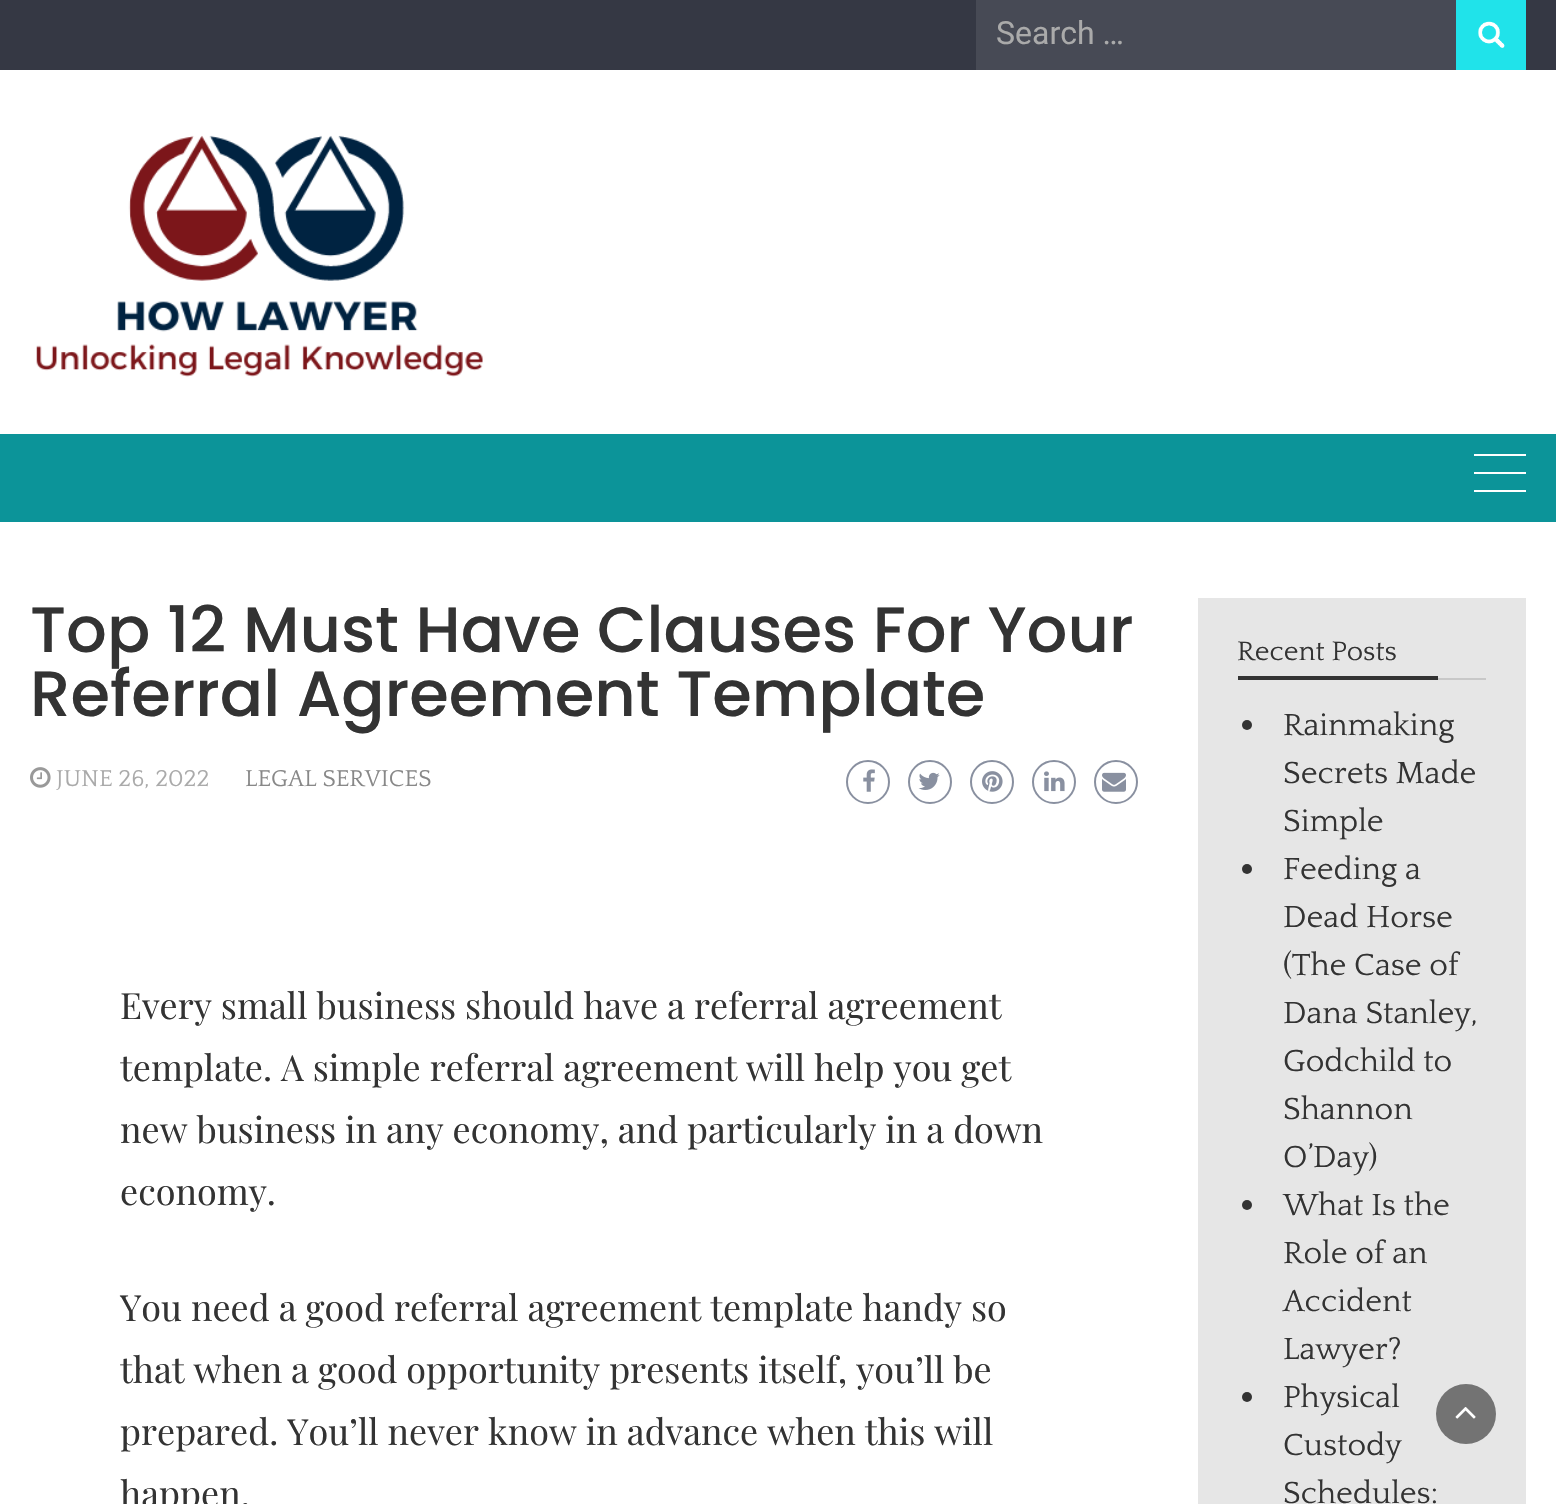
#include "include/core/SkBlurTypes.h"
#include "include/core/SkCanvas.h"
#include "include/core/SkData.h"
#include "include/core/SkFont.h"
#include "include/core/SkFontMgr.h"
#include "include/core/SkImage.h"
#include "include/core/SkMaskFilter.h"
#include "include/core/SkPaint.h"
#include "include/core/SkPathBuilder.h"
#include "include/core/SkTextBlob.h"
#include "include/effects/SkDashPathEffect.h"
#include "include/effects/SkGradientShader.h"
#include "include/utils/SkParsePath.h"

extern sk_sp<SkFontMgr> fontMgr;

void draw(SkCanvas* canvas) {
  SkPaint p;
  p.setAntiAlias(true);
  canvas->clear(SK_ColorWHITE);
  p.setColor(SkColorSetRGB(53, 56, 68));
  canvas->drawRect(SkRect::MakeLTRB(0, 0, 1556, 70), p);
  p.setColor(SkColorSetRGB(71, 74, 85));
  canvas->drawRect(SkRect::MakeLTRB(976, 0, 1456, 70), p);
  p.setColor(SkColorSetRGB(32, 227, 234));
  canvas->drawRect(SkRect::MakeLTRB(1456, 0, 1526, 70), p);
  canvas->drawImageRect(SkImages::DeferredFromEncodedData(SkData::MakeFromFileName("images/1.png")), SkRect::MakeLTRB(1478, 21, 1505, 48), SkSamplingOptions());
  canvas->drawImageRect(SkImages::DeferredFromEncodedData(SkData::MakeFromFileName("images/2.png")), SkRect::MakeLTRB(36, 135, 483, 377), SkSamplingOptions());
  p.setColor(SkColorSetRGB(12, 148, 153));
  canvas->drawRect(SkRect::MakeLTRB(0, 434, 1556, 522), p);
  p.setColor(SK_ColorWHITE);
  canvas->drawRect(SkRect::MakeLTRB(1474, 454, 1526, 456), p);
  canvas->drawRect(SkRect::MakeLTRB(1474, 472, 1526, 474), p);
  canvas->drawRect(SkRect::MakeLTRB(1474, 490, 1526, 492), p);
  canvas->drawImageRect(SkImages::DeferredFromEncodedData(SkData::MakeFromFileName("images/3.png")), SkRect::MakeLTRB(30, 767, 51, 788), SkSamplingOptions());
  p.setStyle(SkPaint::kStroke_Style);
  p.setStrokeWidth(2);
  p.setColor(SkColorSetRGB(137, 144, 160));
  canvas->drawCircle(868, 782, 21, p);
  canvas->drawImageRect(SkImages::DeferredFromEncodedData(SkData::MakeFromFileName("images/4.png")), SkRect::MakeLTRB(863, 769, 875, 792), SkSamplingOptions());
  canvas->drawCircle(930, 782, 21, p);
  canvas->drawImageRect(SkImages::DeferredFromEncodedData(SkData::MakeFromFileName("images/5.png")), SkRect::MakeLTRB(918, 772, 940, 790), SkSamplingOptions());
  canvas->drawCircle(992, 782, 21, p);
  canvas->drawImageRect(SkImages::DeferredFromEncodedData(SkData::MakeFromFileName("images/6.png")), SkRect::MakeLTRB(982, 771, 1003, 792), SkSamplingOptions());
  canvas->drawCircle(1054, 782, 21, p);
  canvas->drawImageRect(SkImages::DeferredFromEncodedData(SkData::MakeFromFileName("images/7.png")), SkRect::MakeLTRB(1044, 771, 1065, 792), SkSamplingOptions());
  canvas->drawCircle(1116, 782, 21, p);
  canvas->drawImageRect(SkImages::DeferredFromEncodedData(SkData::MakeFromFileName("images/8.png")), SkRect::MakeLTRB(1102, 772, 1126, 792), SkSamplingOptions());
  p.setStyle(SkPaint::kFill_Style);
  p.setColor(SkColorSetRGB(230, 230, 230));
  canvas->drawRect(SkRect::MakeLTRB(1198, 598, 1526, 1504), p);
  p.setColor(SkColorSetRGB(200, 200, 200));
  canvas->drawRect(SkRect::MakeLTRB(1438, 678, 1486, 680), p);
  p.setColor(SkColorSetRGB(51, 51, 51));
  canvas->drawRect(SkRect::MakeLTRB(1238, 676, 1438, 680), p);
  canvas->drawCircle(1247, 725, 5, p);
  canvas->drawCircle(1247, 869, 5, p);
  canvas->drawCircle(1247, 1205, 5, p);
  canvas->drawCircle(1247, 1397, 5, p);
  p.setColor(SkColorSetRGB(115, 115, 115));
  canvas->drawCircle(1466, 1414, 30, p);
  canvas->drawImageRect(SkImages::DeferredFromEncodedData(SkData::MakeFromFileName("images/9.png")), SkRect::MakeLTRB(1455, 1407, 1476, 1419), SkSamplingOptions());
  SkFont font1(fontMgr->matchFamilyStyle("Roboto", SkFontStyle::Normal()), 32);
  font1.setSubpixel(true);
  p.setColor(SkColorSetRGB(170, 170, 170));
  canvas->drawString("Search …", 996, 44, font1, p);
  SkFont font2(fontMgr->matchFamilyStyle("Poppins", SkFontStyle(500, SkFontStyle::kNormal_Width, SkFontStyle::kUpright_Slant)), 64);
  font2.setSubpixel(true);
  p.setColor(SkColorSetRGB(51, 51, 51));
  canvas->drawString("Top 12 Must Have Clauses For Your", 30, 652, font2, p);
  canvas->drawString("Referral Agreement Template", 30, 716, font2, p);
  SkFont font3(fontMgr->matchFamilyStyle("Quattrocento", SkFontStyle::Normal()), 24);
  font3.setSubpixel(true);
  p.setColor(SkColorSetRGB(170, 170, 170));
  canvas->drawString("JUNE 26, 2022", 56, 786, font3, p);
  p.setColor(SkColorSetRGB(136, 136, 136));
  canvas->drawString("LEGAL SERVICES", 245, 786, font3, p);
  SkFont font4(fontMgr->matchFamilyStyle("Playfair Display", SkFontStyle::Normal()), 36);
  font4.setSubpixel(true);
  p.setColor(SkColorSetRGB(51, 51, 51));
  canvas->drawString("Every small business should have a referral agreement", 120, 1019, font4, p);
  canvas->drawString("template. A simple referral agreement will help you get", 120, 1081, font4, p);
  canvas->drawString("new business in any economy, and particularly in a down", 120, 1143, font4, p);
  canvas->drawString("economy.", 120, 1205, font4, p);
  canvas->drawString("You need a good referral agreement template handy so", 120, 1321, font4, p);
  canvas->drawString("that when a good opportunity presents itself, you’ll be", 120, 1383, font4, p);
  canvas->drawString("prepared. You’ll never know in advance when this will", 120, 1445, font4, p);
  canvas->drawString("happen.", 120, 1507, font4, p);
  SkFont font5(fontMgr->matchFamilyStyle("Quattrocento", SkFontStyle::Normal()), 28);
  font5.setSubpixel(true);
  canvas->drawString("Recent Posts", 1237, 660, font5, p);
  SkFont font6(fontMgr->matchFamilyStyle("Quattrocento", SkFontStyle::Normal()), 32);
  font6.setSubpixel(true);
  canvas->drawString("Rainmaking", 1283, 735, font6, p);
  canvas->drawString("Secrets Made", 1283, 783, font6, p);
  canvas->drawString("Simple", 1283, 831, font6, p);
  canvas->drawString("Feeding a", 1283, 879, font6, p);
  canvas->drawString("Dead Horse", 1283, 927, font6, p);
  canvas->drawString("(The Case of", 1283, 975, font6, p);
  canvas->drawString("Dana Stanley,", 1283, 1023, font6, p);
  canvas->drawString("Godchild to", 1283, 1071, font6, p);
  canvas->drawString("Shannon", 1283, 1119, font6, p);
  canvas->drawString("O’Day)", 1283, 1167, font6, p);
  canvas->drawString("What Is the", 1283, 1215, font6, p);
  canvas->drawString("Role of an", 1283, 1263, font6, p);
  canvas->drawString("Accident", 1283, 1311, font6, p);
  canvas->drawString("Lawyer?", 1283, 1359, font6, p);
  canvas->drawString("Physical", 1283, 1407, font6, p);
  canvas->drawString("Custody", 1283, 1455, font6, p);
  canvas->drawString("Schedules:", 1283, 1503, font6, p);
}
